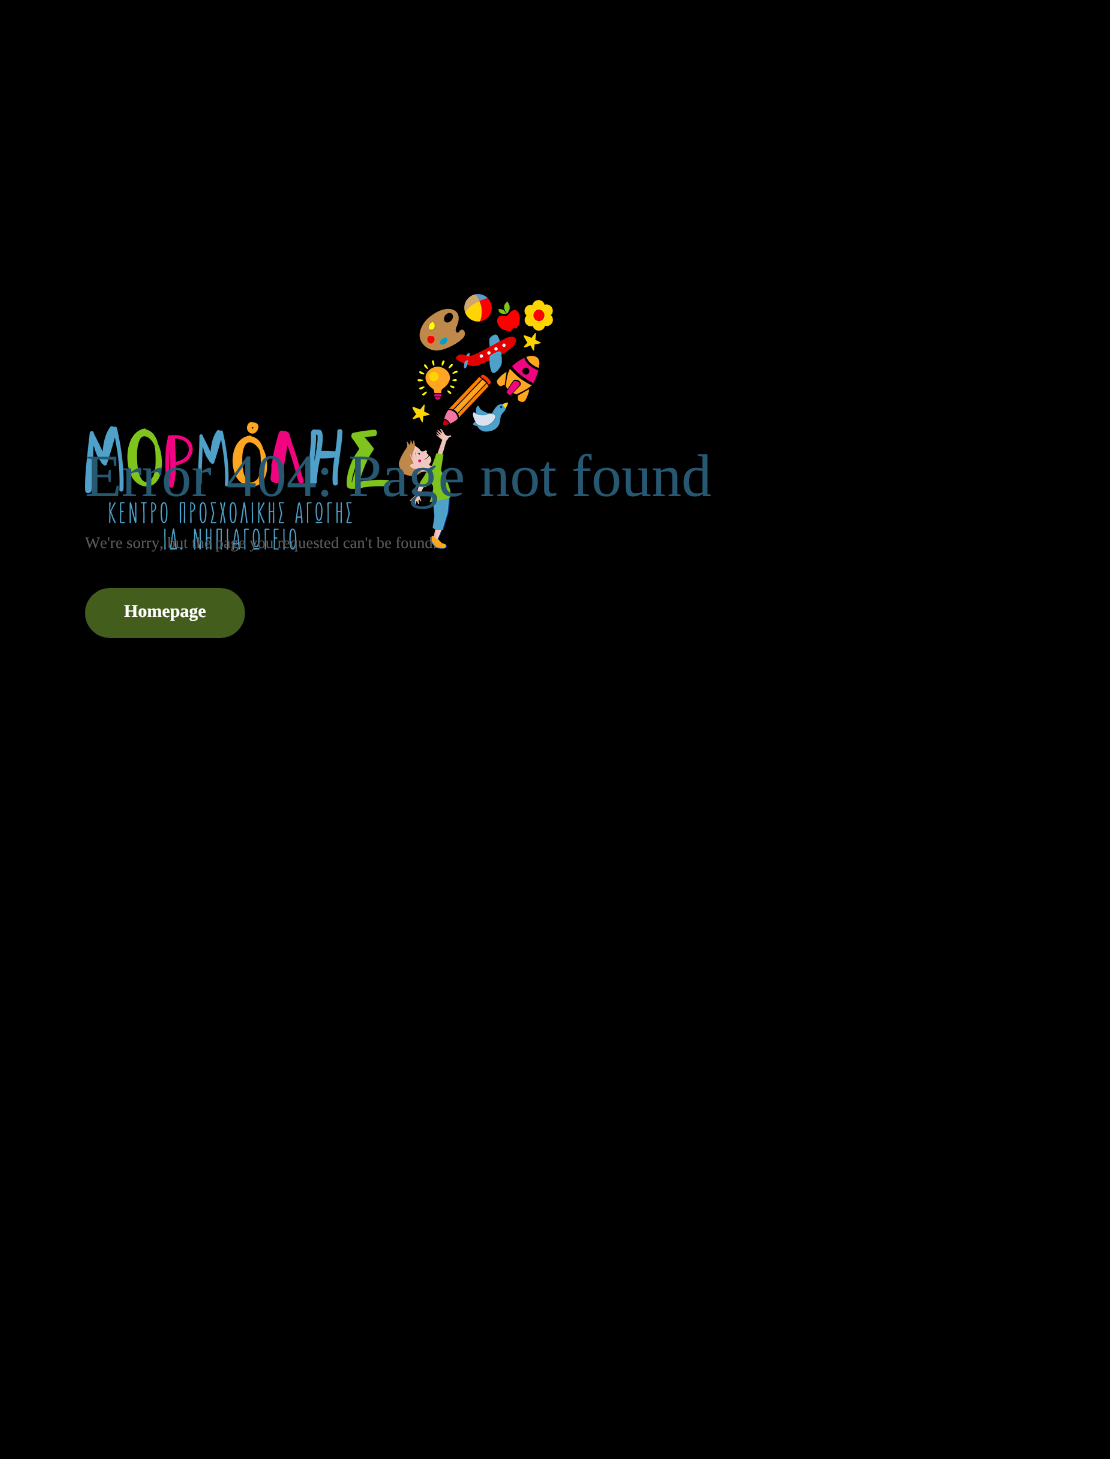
#include "include/core/SkBlurTypes.h"
#include "include/core/SkCanvas.h"
#include "include/core/SkData.h"
#include "include/core/SkFont.h"
#include "include/core/SkFontMgr.h"
#include "include/core/SkImage.h"
#include "include/core/SkMaskFilter.h"
#include "include/core/SkPaint.h"
#include "include/core/SkPathBuilder.h"
#include "include/core/SkTextBlob.h"
#include "include/effects/SkDashPathEffect.h"
#include "include/effects/SkGradientShader.h"
#include "include/utils/SkParsePath.h"

extern sk_sp<SkFontMgr> fontMgr;

void draw(SkCanvas* canvas) {
  SkPaint p;
  p.setAntiAlias(true);
  canvas->clear(SK_ColorBLACK);
  canvas->drawImageRect(SkImages::DeferredFromEncodedData(SkData::MakeFromFileName("images/1.png")), SkRect::MakeLTRB(85, 294, 553, 550), SkSamplingOptions());
  p.setColor(SkColorSetRGB(67, 93, 29));
  canvas->drawRoundRect(SkRect::MakeLTRB(86, 589, 244, 637), 24, 24, p);
  p.setStyle(SkPaint::kStroke_Style);
  p.setStrokeWidth(2);
  canvas->drawRoundRect(SkRect::MakeLTRB(86, 589, 244, 637), 24, 24, p);
  SkFont font1(fontMgr->matchFamilyStyle("Liberation Serif", SkFontStyle::Normal()), 60);
  font1.setSubpixel(true);
  p.setStyle(SkPaint::kFill_Style);
  p.setColor(SkColorSetRGB(39, 88, 114));
  canvas->drawString("Error 404: Page not found", 85, 496, font1, p);
  SkFont font2(fontMgr->matchFamilyStyle("Liberation Serif", SkFontStyle::Normal()), 16);
  font2.setSubpixel(true);
  p.setColor(SkColorSetRGB(89, 89, 89));
  canvas->drawString("We're sorry, but the page you requested can't be found.", 85, 548, font2, p);
  SkFont font3(fontMgr->matchFamilyStyle("Liberation Serif", SkFontStyle::Bold()), 18);
  font3.setSubpixel(true);
  p.setColor(SK_ColorWHITE);
  canvas->drawString("Homepage", 124, 617, font3, p);
}
